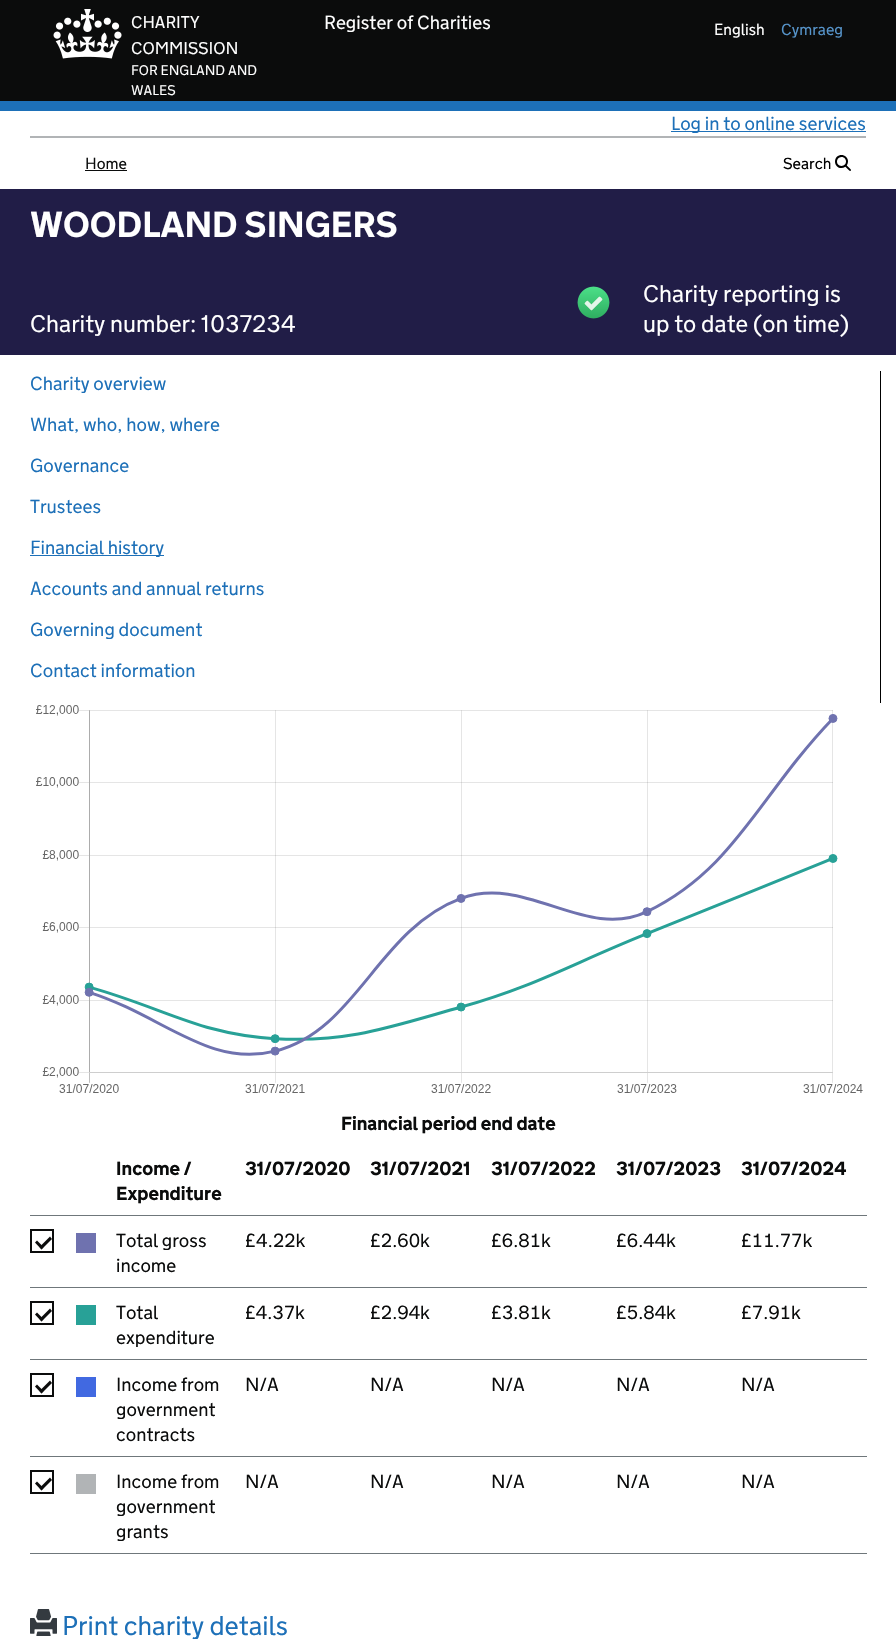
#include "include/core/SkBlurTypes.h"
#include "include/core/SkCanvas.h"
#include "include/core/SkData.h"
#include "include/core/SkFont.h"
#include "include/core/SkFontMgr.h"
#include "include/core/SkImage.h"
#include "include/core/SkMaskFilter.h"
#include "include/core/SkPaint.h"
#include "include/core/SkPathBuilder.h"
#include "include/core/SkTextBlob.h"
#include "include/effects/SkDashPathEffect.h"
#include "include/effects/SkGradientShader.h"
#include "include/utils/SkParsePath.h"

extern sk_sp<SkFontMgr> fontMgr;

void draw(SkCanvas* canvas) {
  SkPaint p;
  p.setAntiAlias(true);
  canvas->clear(SK_ColorWHITE);
  p.setColor(SkColorSetRGB(11, 12, 12));
  canvas->drawRect(SkRect::MakeLTRB(0, 0, 896, 101), p);
  p.setColor(SkColorSetRGB(29, 112, 184));
  canvas->drawRect(SkRect::MakeLTRB(0, 101, 896, 111), p);
  canvas->drawImageRect(SkImages::DeferredFromEncodedData(SkData::MakeFromFileName("images/1.png")), SkRect::MakeLTRB(53, 9, 122, 59), SkSamplingOptions());
  p.setColor(SkColorSetRGB(177, 180, 182));
  canvas->drawRect(SkRect::MakeLTRB(30, 136, 866, 138), p);
  p.setColor(SkColorSetRGB(29, 112, 184));
  canvas->drawRect(SkRect::MakeLTRB(671, 131, 866, 132), p);
  p.setColor(SkColorSetRGB(11, 12, 12));
  canvas->drawRect(SkRect::MakeLTRB(85, 170, 127, 171), p);
  canvas->drawImageRect(SkImages::DeferredFromEncodedData(SkData::MakeFromFileName("images/2.png")), SkRect::MakeLTRB(835, 155, 851, 171), SkSamplingOptions());
  p.setColor(SkColorSetRGB(33, 29, 71));
  canvas->drawRect(SkRect::MakeLTRB(0, 189, 896, 355), p);
  canvas->drawImageRect(SkImages::DeferredFromEncodedData(SkData::MakeFromFileName("images/3.png")), SkRect::MakeLTRB(577, 286, 610, 319), SkSamplingOptions());
  p.setColor(SK_ColorBLACK);
  canvas->drawRect(SkRect::MakeLTRB(880, 371, 881, 703), p);
  p.setColor(SkColorSetRGB(29, 112, 184));
  canvas->drawRect(SkRect::MakeLTRB(30, 555, 164, 556), p);
  canvas->drawImageRect(SkImages::DeferredFromEncodedData(SkData::MakeFromFileName("images/4.png")), SkRect::MakeLTRB(36, 705, 863, 1093), SkSamplingOptions());
  p.setColor(SkColorSetRGB(111, 119, 123));
  canvas->drawRect(SkRect::MakeLTRB(30, 1215, 867, 1216), p);
  p.setStyle(SkPaint::kStroke_Style);
  p.setStrokeWidth(2);
  p.setColor(SkColorSetRGB(11, 12, 12));
  canvas->drawRect(SkRect::MakeLTRB(31, 1230, 53, 1252), p);
  p.setStyle(SkPaint::kFill_Style);
  canvas->drawPath(SkPathBuilder().moveTo(39.5f, 1247).lineTo(50, 1236.5f).lineTo(52, 1239).lineTo(41.5f, 1249.5f).close().detach(), p);
  canvas->drawPath(SkPathBuilder().moveTo(35, 1242.5f).lineTo(37, 1240.5f).lineTo(43.5f, 1247).lineTo(41.5f, 1249.5f).close().detach(), p);
  p.setColor(SkColorSetRGB(111, 114, 175));
  canvas->drawRect(SkRect::MakeLTRB(76, 1233, 96, 1253), p);
  p.setColor(SkColorSetRGB(111, 119, 123));
  canvas->drawRect(SkRect::MakeLTRB(30, 1287, 867, 1288), p);
  p.setStyle(SkPaint::kStroke_Style);
  p.setColor(SkColorSetRGB(11, 12, 12));
  canvas->drawRect(SkRect::MakeLTRB(31, 1302, 53, 1324), p);
  p.setStyle(SkPaint::kFill_Style);
  canvas->drawPath(SkPathBuilder().moveTo(39.5f, 1319).lineTo(50, 1308.5f).lineTo(52, 1311).lineTo(41.5f, 1321.5f).close().detach(), p);
  canvas->drawPath(SkPathBuilder().moveTo(35, 1314.5f).lineTo(37, 1312.5f).lineTo(43.5f, 1319).lineTo(41.5f, 1321.5f).close().detach(), p);
  p.setColor(SkColorSetRGB(40, 161, 151));
  canvas->drawRect(SkRect::MakeLTRB(76, 1305, 96, 1325), p);
  p.setColor(SkColorSetRGB(111, 119, 123));
  canvas->drawRect(SkRect::MakeLTRB(30, 1359, 867, 1360), p);
  p.setStyle(SkPaint::kStroke_Style);
  p.setColor(SkColorSetRGB(11, 12, 12));
  canvas->drawRect(SkRect::MakeLTRB(31, 1374, 53, 1396), p);
  p.setStyle(SkPaint::kFill_Style);
  canvas->drawPath(SkPathBuilder().moveTo(39.5f, 1391).lineTo(50, 1380.5f).lineTo(52, 1383).lineTo(41.5f, 1393.5f).close().detach(), p);
  canvas->drawPath(SkPathBuilder().moveTo(35, 1386.5f).lineTo(37, 1384.5f).lineTo(43.5f, 1391).lineTo(41.5f, 1393.5f).close().detach(), p);
  p.setColor(SkColorSetRGB(65, 105, 225));
  canvas->drawRect(SkRect::MakeLTRB(76, 1377, 96, 1397), p);
  p.setColor(SkColorSetRGB(111, 119, 123));
  canvas->drawRect(SkRect::MakeLTRB(30, 1456, 867, 1457), p);
  p.setStyle(SkPaint::kStroke_Style);
  p.setColor(SkColorSetRGB(11, 12, 12));
  canvas->drawRect(SkRect::MakeLTRB(31, 1471, 53, 1493), p);
  p.setStyle(SkPaint::kFill_Style);
  canvas->drawPath(SkPathBuilder().moveTo(39.5f, 1488).lineTo(50, 1477.5f).lineTo(52, 1480).lineTo(41.5f, 1490.5f).close().detach(), p);
  canvas->drawPath(SkPathBuilder().moveTo(35, 1483.5f).lineTo(37, 1481.5f).lineTo(43.5f, 1488).lineTo(41.5f, 1490.5f).close().detach(), p);
  p.setColor(SkColorSetRGB(177, 180, 182));
  canvas->drawRect(SkRect::MakeLTRB(76, 1474, 96, 1494), p);
  p.setColor(SkColorSetRGB(111, 119, 123));
  canvas->drawRect(SkRect::MakeLTRB(30, 1553, 867, 1554), p);
  canvas->drawImageRect(SkImages::DeferredFromEncodedData(SkData::MakeFromFileName("images/5.png")), SkRect::MakeLTRB(30, 1609, 57, 1636), SkSamplingOptions());
  SkFont font1(fontMgr->matchFamilyStyle("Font", SkFontStyle(300, SkFontStyle::kNormal_Width, SkFontStyle::kUpright_Slant)), 17);
  font1.setSubpixel(true);
  p.setColor(SK_ColorWHITE);
  canvas->drawString("CHARITY", 131, 28, font1, p);
  canvas->drawString("COMMISSION", 131, 54, font1, p);
  SkFont font2(fontMgr->matchFamilyStyle("Font", SkFontStyle(300, SkFontStyle::kNormal_Width, SkFontStyle::kUpright_Slant)), 14);
  font2.setSubpixel(true);
  canvas->drawString("FOR ENGLAND AND", 131, 75, font2, p);
  canvas->drawString("WALES", 131, 95, font2, p);
  SkFont font3(fontMgr->matchFamilyStyle("Font", SkFontStyle(300, SkFontStyle::kNormal_Width, SkFontStyle::kUpright_Slant)), 19);
  font3.setSubpixel(true);
  canvas->drawString("Register of Charities", 324, 29, font3, p);
  SkFont font4(fontMgr->matchFamilyStyle("Font", SkFontStyle(300, SkFontStyle::kNormal_Width, SkFontStyle::kUpright_Slant)), 16);
  font4.setSubpixel(true);
  canvas->drawString("English", 714, 35, font4, p);
  p.setColor(SkColorSetRGB(86, 148, 202));
  canvas->drawString("Cymraeg", 781, 35, font4, p);
  p.setColor(SkColorSetRGB(29, 112, 184));
  canvas->drawString("Log in to online services", 671, 130, font3, p);
  p.setColor(SkColorSetRGB(11, 12, 12));
  canvas->drawString("Home", 85, 169, font4, p);
  p.setColor(SK_ColorBLACK);
  canvas->drawString("Search", 783, 169, font4, p);
  SkFont font5(fontMgr->matchFamilyStyle("Font", SkFontStyle::Bold()), 36);
  font5.setSubpixel(true);
  p.setColor(SK_ColorWHITE);
  canvas->drawString("WOODLAND SINGERS", 30, 237, font5, p);
  SkFont font6(fontMgr->matchFamilyStyle("Font", SkFontStyle(300, SkFontStyle::kNormal_Width, SkFontStyle::kUpright_Slant)), 24);
  font6.setSubpixel(true);
  canvas->drawString("Charity number: 1037234", 30, 332, font6, p);
  canvas->drawString("Charity reporting is", 643, 302, font6, p);
  canvas->drawString("up to date (on time)", 643, 332, font6, p);
  p.setColor(SkColorSetRGB(29, 112, 184));
  canvas->drawString("Charity overview", 30, 390, font3, p);
  canvas->drawString("What, who, how, where", 30, 431, font3, p);
  canvas->drawString("Governance", 30, 472, font3, p);
  canvas->drawString("Trustees", 30, 513, font3, p);
  canvas->drawString("Financial history", 30, 554, font3, p);
  canvas->drawString("Accounts and annual returns", 30, 595, font3, p);
  canvas->drawString("Governing document", 30, 636, font3, p);
  canvas->drawString("Contact information", 30, 677, font3, p);
  SkFont font7(fontMgr->matchFamilyStyle("Font", SkFontStyle::Bold()), 19);
  font7.setSubpixel(true);
  p.setColor(SkColorSetRGB(11, 12, 12));
  canvas->drawString("Financial period end date", 341, 1130, font7, p);
  canvas->drawString("Income /", 116, 1175, font7, p);
  canvas->drawString("Expenditure", 116, 1200, font7, p);
  canvas->drawString("31/07/2020", 245, 1175, font7, p);
  canvas->drawString("31/07/2021", 370, 1175, font7, p);
  canvas->drawString("31/07/2022", 491, 1175, font7, p);
  canvas->drawString("31/07/2023", 616, 1175, font7, p);
  canvas->drawString("31/07/2024", 741, 1175, font7, p);
  canvas->drawString("Total gross", 116, 1247, font3, p);
  canvas->drawString("income", 116, 1272, font3, p);
  canvas->drawString("£4.22k", 245, 1247, font3, p);
  SkFont font8(fontMgr->matchFamilyStyle("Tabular", SkFontStyle(300, SkFontStyle::kNormal_Width, SkFontStyle::kUpright_Slant)), 19);
  font8.setSubpixel(true);
  canvas->drawString("£2.60k", 370, 1247, font8, p);
  canvas->drawString("£6.81k", 491, 1247, font8, p);
  canvas->drawString("£6.44k", 616, 1247, font8, p);
  canvas->drawString("£11.77k", 741, 1247, font8, p);
  canvas->drawString("Total", 116, 1319, font3, p);
  canvas->drawString("expenditure", 116, 1344, font3, p);
  canvas->drawString("£4.37k", 245, 1319, font8, p);
  canvas->drawString("£2.94k", 370, 1319, font8, p);
  canvas->drawString("£3.81k", 491, 1319, font8, p);
  canvas->drawString("£5.84k", 616, 1319, font8, p);
  canvas->drawString("£7.91k", 741, 1319, font8, p);
  canvas->drawString("Income from", 116, 1391, font3, p);
  canvas->drawString("government", 116, 1416, font3, p);
  canvas->drawString("contracts", 116, 1441, font3, p);
  canvas->drawString("N/A", 245, 1391, font3, p);
  canvas->drawString("N/A", 370, 1391, font3, p);
  canvas->drawString("N/A", 491, 1391, font3, p);
  canvas->drawString("N/A", 616, 1391, font3, p);
  canvas->drawString("N/A", 741, 1391, font3, p);
  canvas->drawString("Income from", 116, 1488, font3, p);
  canvas->drawString("government", 116, 1513, font3, p);
  canvas->drawString("grants", 116, 1538, font3, p);
  canvas->drawString("N/A", 245, 1488, font3, p);
  canvas->drawString("N/A", 370, 1488, font3, p);
  canvas->drawString("N/A", 491, 1488, font3, p);
  canvas->drawString("N/A", 616, 1488, font3, p);
  canvas->drawString("N/A", 741, 1488, font3, p);
  SkFont font9(fontMgr->matchFamilyStyle("Font", SkFontStyle(300, SkFontStyle::kNormal_Width, SkFontStyle::kUpright_Slant)), 27);
  font9.setSubpixel(true);
  p.setColor(SkColorSetRGB(29, 112, 184));
  canvas->drawString("Print charity details", 62, 1635, font9, p);
}
